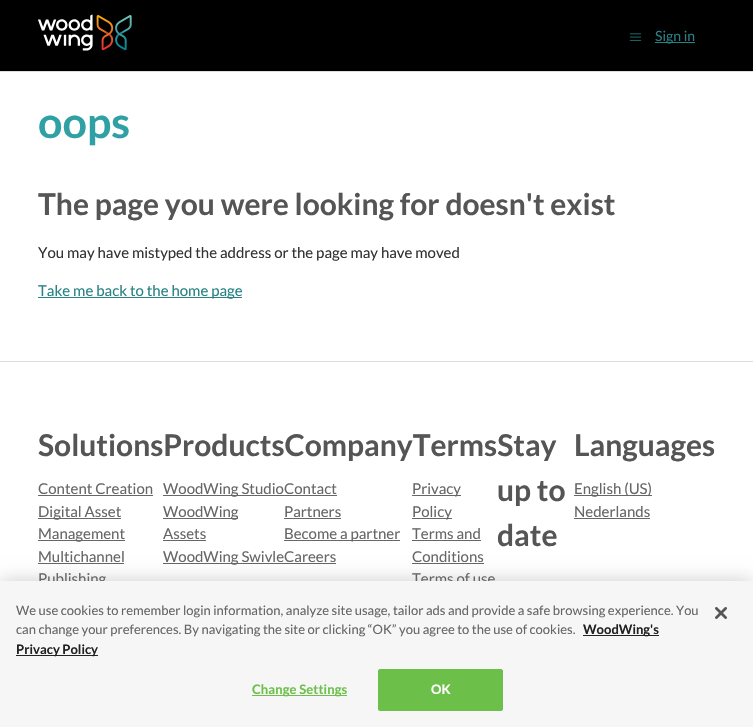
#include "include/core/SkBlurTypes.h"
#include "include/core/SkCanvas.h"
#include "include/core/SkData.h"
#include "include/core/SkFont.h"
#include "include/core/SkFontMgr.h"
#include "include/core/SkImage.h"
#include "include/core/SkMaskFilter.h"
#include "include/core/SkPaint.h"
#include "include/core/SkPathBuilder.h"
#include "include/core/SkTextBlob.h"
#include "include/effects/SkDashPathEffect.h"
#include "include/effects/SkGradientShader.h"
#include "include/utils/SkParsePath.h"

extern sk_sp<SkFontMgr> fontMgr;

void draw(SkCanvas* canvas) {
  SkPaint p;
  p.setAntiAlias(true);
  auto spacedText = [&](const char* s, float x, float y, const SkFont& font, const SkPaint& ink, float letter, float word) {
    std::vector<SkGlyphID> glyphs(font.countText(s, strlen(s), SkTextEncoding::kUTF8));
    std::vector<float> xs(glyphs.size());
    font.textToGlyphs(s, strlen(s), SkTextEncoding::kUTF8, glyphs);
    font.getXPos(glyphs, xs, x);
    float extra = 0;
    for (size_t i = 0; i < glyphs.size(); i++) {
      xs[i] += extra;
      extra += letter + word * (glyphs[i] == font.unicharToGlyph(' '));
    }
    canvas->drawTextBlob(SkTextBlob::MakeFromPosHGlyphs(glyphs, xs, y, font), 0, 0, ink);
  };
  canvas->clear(SK_ColorWHITE);
  p.setColor(SK_ColorBLACK);
  canvas->drawRect(SkRect::MakeLTRB(0, 0, 753, 71), p);
  canvas->drawImageRect(SkImages::DeferredFromEncodedData(SkData::MakeFromFileName("images/1.png")), SkRect::MakeLTRB(38, 14, 132, 51), SkSamplingOptions());
  canvas->drawImageRect(SkImages::DeferredFromEncodedData(SkData::MakeFromFileName("images/2.png")), SkRect::MakeLTRB(629, 33, 642, 41), SkSamplingOptions());
  p.setColor(SkColorSetRGB(38, 130, 133));
  canvas->drawRect(SkRect::MakeLTRB(655, 42, 695, 43), p);
  p.setColor(SkColorSetRGB(221, 221, 221));
  canvas->drawRect(SkRect::MakeLTRB(0, 71, 753, 72), p);
  p.setColor(SkColorSetRGB(38, 130, 133));
  canvas->drawRect(SkRect::MakeLTRB(38, 297, 242, 298), p);
  p.setColor(SkColorSetRGB(221, 221, 221));
  canvas->drawRect(SkRect::MakeLTRB(0, 361, 753, 362), p);
  p.setColor(SkColorSetRGB(102, 102, 102));
  canvas->drawRect(SkRect::MakeLTRB(38, 495, 153, 496), p);
  canvas->drawRect(SkRect::MakeLTRB(38, 518, 121, 519), p);
  canvas->drawRect(SkRect::MakeLTRB(38, 540, 125, 541), p);
  canvas->drawRect(SkRect::MakeLTRB(38, 563, 124, 564), p);
  canvas->drawRect(SkRect::MakeLTRB(574, 495, 652, 496), p);
  canvas->drawRect(SkRect::MakeLTRB(574, 518, 650, 519), p);
  canvas->drawRect(SkRect::MakeLTRB(163, 495, 337, 496), p);
  canvas->drawRect(SkRect::MakeLTRB(163, 518, 238, 519), p);
  canvas->drawRect(SkRect::MakeLTRB(163, 540, 206, 541), p);
  canvas->drawRect(SkRect::MakeLTRB(163, 563, 336, 564), p);
  canvas->drawRect(SkRect::MakeLTRB(284, 518, 341, 519), p);
  canvas->drawRect(SkRect::MakeLTRB(284, 540, 400, 541), p);
  canvas->drawRect(SkRect::MakeLTRB(412, 495, 461, 496), p);
  canvas->drawRect(SkRect::MakeLTRB(412, 518, 452, 519), p);
  canvas->drawRect(SkRect::MakeLTRB(412, 540, 481, 541), p);
  canvas->drawRect(SkRect::MakeLTRB(412, 563, 484, 564), p);
  p.setColor(SkColorSetARGB(51, 0, 0, 0));
  p.setMaskFilter(SkMaskFilter::MakeBlur(kNormal_SkBlurStyle, 9));
  canvas->drawRect(SkRect::MakeLTRB(0, 581, 753, 727), p);
  p.setMaskFilter(nullptr);
  SkFont font1(fontMgr->matchFamilyStyle("Lato", SkFontStyle::Normal()), 14);
  font1.setSubpixel(true);
  p.setColor(SkColorSetRGB(38, 130, 133));
  canvas->drawString("Sign in", 655, 41, font1, p);
  SkFont font2(fontMgr->matchFamilyStyle("Lato", SkFontStyle::Bold()), 43);
  font2.setSubpixel(true);
  p.setColor(SkColorSetRGB(47, 160, 163));
  canvas->drawString("oops", 38, 138, font2, p);
  SkFont font3(fontMgr->matchFamilyStyle("Lato", SkFontStyle::Bold()), 30);
  font3.setSubpixel(true);
  p.setColor(SkColorSetRGB(85, 85, 85));
  canvas->drawString("The page you were looking for doesn't exist", 38, 215, font3, p);
  SkFont font4(fontMgr->matchFamilyStyle("Lato", SkFontStyle::Normal()), 15);
  font4.setSubpixel(true);
  p.setColor(SkColorSetRGB(51, 51, 51));
  canvas->drawString("You may have mistyped the address or the page may have moved", 38, 258, font4, p);
  p.setColor(SkColorSetRGB(38, 130, 133));
  canvas->drawString("Take me back to the home page", 38, 296, font4, p);
  p.setColor(SkColorSetRGB(85, 85, 85));
  canvas->drawString("SolutionsProductsCompanyTermsStay", 38, 456, font3, p);
  p.setColor(SkColorSetRGB(102, 102, 102));
  canvas->drawString("Content Creation", 38, 494, font4, p);
  canvas->drawString("Digital Asset", 38, 517, font4, p);
  canvas->drawString("Management", 38, 539, font4, p);
  canvas->drawString("Multichannel", 38, 562, font4, p);
  canvas->drawString("Publishing", 38, 584, font4, p);
  p.setColor(SkColorSetRGB(85, 85, 85));
  canvas->drawString("Languages", 574, 456, font3, p);
  p.setColor(SkColorSetRGB(102, 102, 102));
  canvas->drawString("English (US)", 574, 494, font4, p);
  canvas->drawString("Nederlands", 574, 517, font4, p);
  canvas->drawString("WoodWing Studio", 163, 494, font4, p);
  canvas->drawString("WoodWing", 163, 517, font4, p);
  canvas->drawString("Assets", 163, 539, font4, p);
  canvas->drawString("WoodWing SwivleCareers", 163, 562, font4, p);
  canvas->drawString("Contact", 284, 494, font4, p);
  canvas->drawString("Partners", 284, 517, font4, p);
  canvas->drawString("Become a partner", 284, 539, font4, p);
  canvas->drawString("Privacy", 412, 494, font4, p);
  canvas->drawString("Policy", 412, 517, font4, p);
  canvas->drawString("Terms and", 412, 539, font4, p);
  canvas->drawString("Conditions", 412, 562, font4, p);
  canvas->drawString("Terms of use", 412, 584, font4, p);
  p.setColor(SkColorSetRGB(85, 85, 85));
  canvas->drawString("up to", 497, 501, font3, p);
  canvas->drawString("date", 497, 546, font3, p);
  p.setColor(SkColorSetRGB(246, 246, 246));
  canvas->drawRect(SkRect::MakeLTRB(0, 581, 753, 727), p);
  SkFont font5(fontMgr->matchFamilyStyle("Lato", SkFontStyle::Normal()), 13);
  font5.setSubpixel(true);
  p.setColor(SkColorSetRGB(102, 102, 102));
  canvas->drawString("We use cookies to remember login information, analyze site usage, tailor ads and provide a safe browsing experience. You", 16, 615, font5, p);
  canvas->drawString("can change your preferences. By navigating the site or clicking “OK” you agree to the use of cookies.", 16, 634, font5, p);
  p.setColor(SkColorSetRGB(34, 34, 34));
  canvas->drawRect(SkRect::MakeLTRB(583, 635, 659, 636), p);
  SkFont font6(fontMgr->matchFamilyStyle("Lato", SkFontStyle::Bold()), 13);
  font6.setSubpixel(true);
  canvas->drawString("WoodWing's", 583, 634, font6, p);
  canvas->drawRect(SkRect::MakeLTRB(16, 655, 98, 656), p);
  canvas->drawString("Privacy Policy", 16, 654, font6, p);
  p.setColor(SkColorSetRGB(108, 192, 74));
  canvas->drawRect(SkRect::MakeLTRB(252, 695, 347, 696), p);
  spacedText("Change Settings", 252, 694, font6, p, 0.1f, 0);
  canvas->drawRoundRect(SkRect::MakeLTRB(378.5f, 669.5f, 502.5f, 710.5f), 1.5f, 1.5f, p);
  p.setStyle(SkPaint::kStroke_Style);
  p.setStrokeWidth(1);
  canvas->drawRoundRect(SkRect::MakeLTRB(378.5f, 669.5f, 502.5f, 710.5f), 1.5f, 1.5f, p);
  p.setStyle(SkPaint::kFill_Style);
  p.setColor(SK_ColorWHITE);
  spacedText("OK", 431, 694, font6, p, 0.1f, 0);
  canvas->drawImageRect(SkImages::DeferredFromEncodedData(SkData::MakeFromFileName("images/3.png")), SkRect::MakeLTRB(715, 607, 727, 619), SkSamplingOptions());
}
